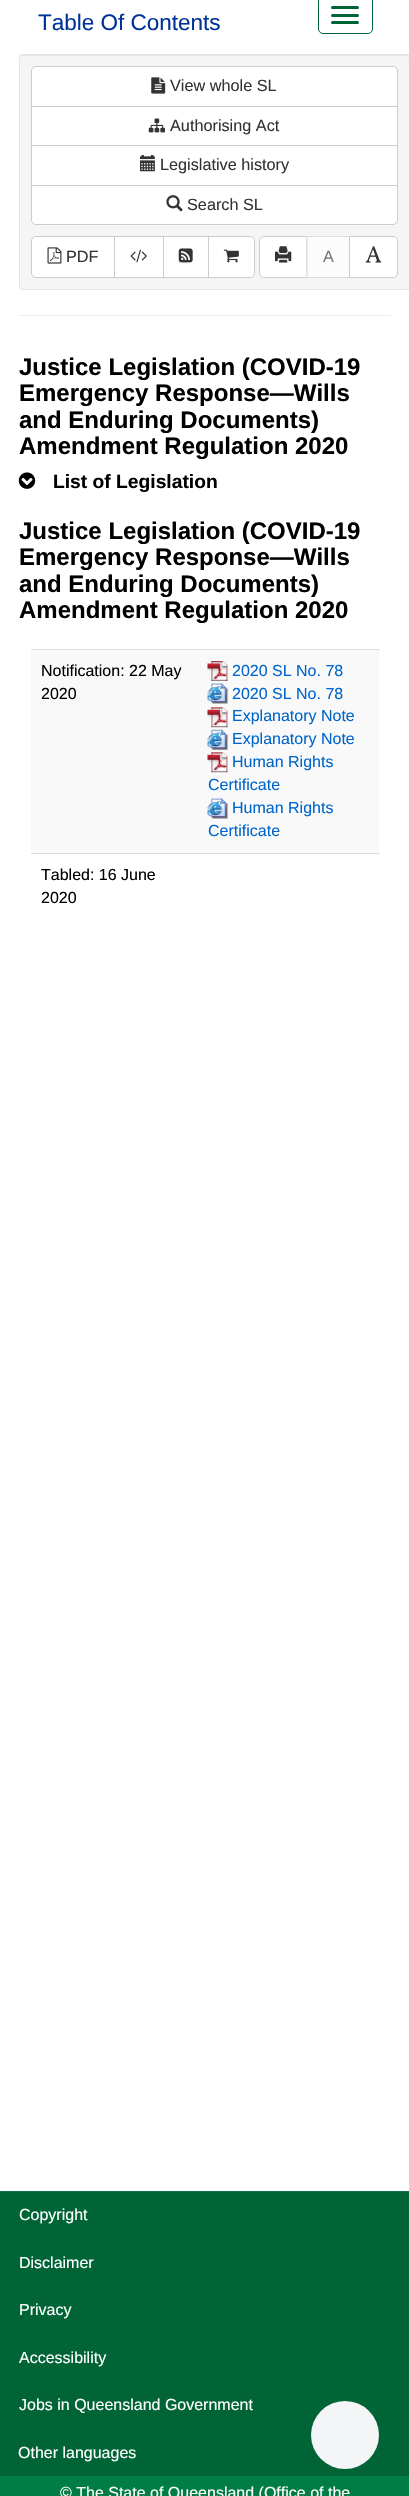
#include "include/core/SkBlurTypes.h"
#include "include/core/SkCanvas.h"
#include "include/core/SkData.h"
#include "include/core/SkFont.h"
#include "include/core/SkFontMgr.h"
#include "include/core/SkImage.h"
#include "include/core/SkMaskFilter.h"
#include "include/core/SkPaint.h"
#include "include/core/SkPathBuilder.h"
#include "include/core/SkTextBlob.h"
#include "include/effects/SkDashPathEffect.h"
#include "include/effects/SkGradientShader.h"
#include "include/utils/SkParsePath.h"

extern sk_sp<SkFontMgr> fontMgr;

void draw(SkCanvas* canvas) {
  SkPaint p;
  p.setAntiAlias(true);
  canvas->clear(SK_ColorWHITE);
  p.setStyle(SkPaint::kStroke_Style);
  p.setStrokeWidth(1);
  p.setColor(SkColorSetRGB(0, 99, 54));
  canvas->drawRoundRect(SkRect::MakeLTRB(318.5f, -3.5f, 372.5f, 33.5f), 4.5f, 4.5f, p);
  p.setStyle(SkPaint::kFill_Style);
  canvas->drawRoundRect(SkRect::MakeLTRB(331, 6, 359, 9), 1.5f, 1.5f, p);
  canvas->drawRoundRect(SkRect::MakeLTRB(331, 14, 359, 17), 1.5f, 1.5f, p);
  canvas->drawRoundRect(SkRect::MakeLTRB(331, 21, 359, 24), 1.5f, 1.5f, p);
  p.setColor(SkColorSetRGB(245, 245, 245));
  canvas->drawRoundRect(SkRect::MakeLTRB(19, 54, 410, 290), 4, 4, p);
  p.setColor(SkColorSetRGB(233, 233, 233));
  canvas->drawPath(SkPathBuilder().moveTo(22, 56).lineTo(406, 56).cubicTo(408, 56, 409, 57, 409, 59).cubicTo(409, 57, 409, 55, 406, 55).lineTo(22, 55).lineTo(20, 56).lineTo(20, 59).cubicTo(20, 57, 21, 56, 22, 56).close().detach(), p);
  p.setStyle(SkPaint::kStroke_Style);
  p.setColor(SkColorSetRGB(227, 227, 227));
  canvas->drawRoundRect(SkRect::MakeLTRB(19.5f, 54.5f, 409.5f, 289.5f), 3.5f, 3.5f, p);
  p.setStyle(SkPaint::kFill_Style);
  p.setColor(SK_ColorWHITE);
  canvas->drawPath(SkPathBuilder().moveTo(36, 66.5f).lineTo(393, 66.5f).cubicTo(395.5f, 66.5f, 397.5f, 68.5f, 397.5f, 71).lineTo(397.5f, 107.5f).lineTo(31.5f, 107.5f).lineTo(31.5f, 71).cubicTo(31.5f, 68.5f, 33.5f, 66.5f, 36, 66.5f).close().detach(), p);
  p.setStyle(SkPaint::kStroke_Style);
  p.setColor(SkColorSetRGB(204, 204, 204));
  canvas->drawPath(SkPathBuilder().moveTo(36, 66.5f).lineTo(393, 66.5f).cubicTo(395.5f, 66.5f, 397.5f, 68.5f, 397.5f, 71).lineTo(397.5f, 107.5f).lineTo(31.5f, 107.5f).lineTo(31.5f, 71).cubicTo(31.5f, 68.5f, 33.5f, 66.5f, 36, 66.5f).close().detach(), p);
  canvas->drawImageRect(SkImages::DeferredFromEncodedData(SkData::MakeFromFileName("images/1.png")), SkRect::MakeLTRB(151, 77, 166, 94), SkSamplingOptions());
  p.setStyle(SkPaint::kFill_Style);
  p.setColor(SK_ColorWHITE);
  canvas->drawRect(SkRect::MakeLTRB(31.5f, 106.5f, 397.5f, 145.5f), p);
  p.setStyle(SkPaint::kStroke_Style);
  p.setColor(SkColorSetRGB(204, 204, 204));
  canvas->drawRect(SkRect::MakeLTRB(31.5f, 106.5f, 397.5f, 145.5f), p);
  canvas->drawImageRect(SkImages::DeferredFromEncodedData(SkData::MakeFromFileName("images/2.png")), SkRect::MakeLTRB(148, 118, 165, 133), SkSamplingOptions());
  p.setStyle(SkPaint::kFill_Style);
  p.setColor(SK_ColorWHITE);
  canvas->drawRect(SkRect::MakeLTRB(31.5f, 145.5f, 397.5f, 185.5f), p);
  p.setStyle(SkPaint::kStroke_Style);
  p.setColor(SkColorSetRGB(204, 204, 204));
  canvas->drawRect(SkRect::MakeLTRB(31.5f, 145.5f, 397.5f, 185.5f), p);
  canvas->drawImageRect(SkImages::DeferredFromEncodedData(SkData::MakeFromFileName("images/3.png")), SkRect::MakeLTRB(140, 155, 155, 172), SkSamplingOptions());
  p.setStyle(SkPaint::kFill_Style);
  p.setColor(SK_ColorWHITE);
  canvas->drawPath(SkPathBuilder().moveTo(31.5f, 185.5f).lineTo(397.5f, 185.5f).lineTo(397.5f, 220).cubicTo(397.5f, 222.5f, 395.5f, 224.5f, 393, 224.5f).lineTo(36, 224.5f).cubicTo(33.5f, 224.5f, 31.5f, 222.5f, 31.5f, 220).close().detach(), p);
  p.setStyle(SkPaint::kStroke_Style);
  p.setColor(SkColorSetRGB(204, 204, 204));
  canvas->drawPath(SkPathBuilder().moveTo(31.5f, 185.5f).lineTo(397.5f, 185.5f).lineTo(397.5f, 220).cubicTo(397.5f, 222.5f, 395.5f, 224.5f, 393, 224.5f).lineTo(36, 224.5f).cubicTo(33.5f, 224.5f, 31.5f, 222.5f, 31.5f, 220).close().detach(), p);
  canvas->drawImageRect(SkImages::DeferredFromEncodedData(SkData::MakeFromFileName("images/4.png")), SkRect::MakeLTRB(166, 195, 183, 212), SkSamplingOptions());
  p.setStyle(SkPaint::kFill_Style);
  p.setColor(SK_ColorWHITE);
  canvas->drawPath(SkPathBuilder().moveTo(36, 236.5f).lineTo(114.5f, 236.5f).lineTo(114.5f, 277.5f).lineTo(36, 277.5f).cubicTo(33.5f, 277.5f, 31.5f, 275.5f, 31.5f, 273).lineTo(31.5f, 241).cubicTo(31.5f, 238.5f, 33.5f, 236.5f, 36, 236.5f).close().detach(), p);
  p.setStyle(SkPaint::kStroke_Style);
  p.setColor(SkColorSetRGB(204, 204, 204));
  canvas->drawPath(SkPathBuilder().moveTo(36, 236.5f).lineTo(114.5f, 236.5f).lineTo(114.5f, 277.5f).lineTo(36, 277.5f).cubicTo(33.5f, 277.5f, 31.5f, 275.5f, 31.5f, 273).lineTo(31.5f, 241).cubicTo(31.5f, 238.5f, 33.5f, 236.5f, 36, 236.5f).close().detach(), p);
  canvas->drawImageRect(SkImages::DeferredFromEncodedData(SkData::MakeFromFileName("images/5.png")), SkRect::MakeLTRB(47, 247, 62, 264), SkSamplingOptions());
  p.setStyle(SkPaint::kFill_Style);
  p.setColor(SK_ColorWHITE);
  canvas->drawRect(SkRect::MakeLTRB(114.5f, 236.5f, 163.5f, 277.5f), p);
  p.setStyle(SkPaint::kStroke_Style);
  p.setColor(SkColorSetRGB(204, 204, 204));
  canvas->drawRect(SkRect::MakeLTRB(114.5f, 236.5f, 163.5f, 277.5f), p);
  canvas->drawImageRect(SkImages::DeferredFromEncodedData(SkData::MakeFromFileName("images/6.png")), SkRect::MakeLTRB(130, 249, 147, 263), SkSamplingOptions());
  p.setStyle(SkPaint::kFill_Style);
  p.setColor(SK_ColorWHITE);
  canvas->drawRect(SkRect::MakeLTRB(163.5f, 236.5f, 208.5f, 277.5f), p);
  p.setStyle(SkPaint::kStroke_Style);
  p.setColor(SkColorSetRGB(204, 204, 204));
  canvas->drawRect(SkRect::MakeLTRB(163.5f, 236.5f, 208.5f, 277.5f), p);
  canvas->drawImageRect(SkImages::DeferredFromEncodedData(SkData::MakeFromFileName("images/7.png")), SkRect::MakeLTRB(178, 248, 193, 263), SkSamplingOptions());
  p.setStyle(SkPaint::kFill_Style);
  p.setColor(SK_ColorWHITE);
  canvas->drawPath(SkPathBuilder().moveTo(208.5f, 236.5f).lineTo(250, 236.5f).cubicTo(252.5f, 236.5f, 254.5f, 238.5f, 254.5f, 241).lineTo(254.5f, 273).cubicTo(254.5f, 275.5f, 252.5f, 277.5f, 250, 277.5f).lineTo(208.5f, 277.5f).close().detach(), p);
  p.setStyle(SkPaint::kStroke_Style);
  p.setColor(SkColorSetRGB(204, 204, 204));
  canvas->drawPath(SkPathBuilder().moveTo(208.5f, 236.5f).lineTo(250, 236.5f).cubicTo(252.5f, 236.5f, 254.5f, 238.5f, 254.5f, 241).lineTo(254.5f, 273).cubicTo(254.5f, 275.5f, 252.5f, 277.5f, 250, 277.5f).lineTo(208.5f, 277.5f).close().detach(), p);
  canvas->drawImageRect(SkImages::DeferredFromEncodedData(SkData::MakeFromFileName("images/8.png")), SkRect::MakeLTRB(223, 249, 239, 263), SkSamplingOptions());
  p.setStyle(SkPaint::kFill_Style);
  p.setColor(SK_ColorWHITE);
  canvas->drawPath(SkPathBuilder().moveTo(264, 236.5f).lineTo(307.5f, 236.5f).lineTo(307.5f, 277.5f).lineTo(264, 277.5f).cubicTo(261.5f, 277.5f, 259.5f, 275.5f, 259.5f, 273).lineTo(259.5f, 241).cubicTo(259.5f, 238.5f, 261.5f, 236.5f, 264, 236.5f).close().detach(), p);
  p.setStyle(SkPaint::kStroke_Style);
  p.setColor(SkColorSetRGB(204, 204, 204));
  canvas->drawPath(SkPathBuilder().moveTo(264, 236.5f).lineTo(307.5f, 236.5f).lineTo(307.5f, 277.5f).lineTo(264, 277.5f).cubicTo(261.5f, 277.5f, 259.5f, 275.5f, 259.5f, 273).lineTo(259.5f, 241).cubicTo(259.5f, 238.5f, 261.5f, 236.5f, 264, 236.5f).close().detach(), p);
  canvas->drawImageRect(SkImages::DeferredFromEncodedData(SkData::MakeFromFileName("images/9.png")), SkRect::MakeLTRB(275, 246, 292, 263), SkSamplingOptions());
  p.setStyle(SkPaint::kFill_Style);
  p.setColor(SkColorSetARGB(166, 255, 255, 255));
  canvas->drawRect(SkRect::MakeLTRB(306, 236, 349, 278), p);
  p.setStyle(SkPaint::kStroke_Style);
  p.setColor(SkColorSetARGB(166, 204, 204, 204));
  canvas->drawRect(SkRect::MakeLTRB(306.5f, 236.5f, 349.5f, 277.5f), p);
  p.setStyle(SkPaint::kFill_Style);
  p.setColor(SK_ColorWHITE);
  canvas->drawPath(SkPathBuilder().moveTo(349.5f, 236.5f).lineTo(393, 236.5f).cubicTo(395.5f, 236.5f, 397.5f, 238.5f, 397.5f, 241).lineTo(397.5f, 273).cubicTo(397.5f, 275.5f, 395.5f, 277.5f, 393, 277.5f).lineTo(349.5f, 277.5f).close().detach(), p);
  p.setStyle(SkPaint::kStroke_Style);
  p.setColor(SkColorSetRGB(204, 204, 204));
  canvas->drawPath(SkPathBuilder().moveTo(349.5f, 236.5f).lineTo(393, 236.5f).cubicTo(395.5f, 236.5f, 397.5f, 238.5f, 397.5f, 241).lineTo(397.5f, 273).cubicTo(397.5f, 275.5f, 395.5f, 277.5f, 393, 277.5f).lineTo(349.5f, 277.5f).close().detach(), p);
  canvas->drawImageRect(SkImages::DeferredFromEncodedData(SkData::MakeFromFileName("images/10.png")), SkRect::MakeLTRB(365, 246, 382, 263), SkSamplingOptions());
  p.setStyle(SkPaint::kFill_Style);
  p.setColor(SkColorSetRGB(238, 238, 238));
  canvas->drawRect(SkRect::MakeLTRB(19, 315, 391, 316), p);
  canvas->drawImageRect(SkImages::DeferredFromEncodedData(SkData::MakeFromFileName("images/11.png")), SkRect::MakeLTRB(18, 472, 36, 489), SkSamplingOptions());
  p.setColor(SkColorSetRGB(249, 249, 249));
  canvas->drawRect(SkRect::MakeLTRB(31, 650, 379, 853), p);
  p.setColor(SkColorSetRGB(221, 221, 221));
  canvas->drawRect(SkRect::MakeLTRB(31, 649, 380, 650), p);
  canvas->drawImageRect(SkImages::DeferredFromEncodedData(SkData::MakeFromFileName("images/12.png")), SkRect::MakeLTRB(207, 661, 228, 681), SkSamplingOptions());
  canvas->drawImageRect(SkImages::DeferredFromEncodedData(SkData::MakeFromFileName("images/13.png")), SkRect::MakeLTRB(207, 683, 228, 704), SkSamplingOptions());
  canvas->drawImageRect(SkImages::DeferredFromEncodedData(SkData::MakeFromFileName("images/14.png")), SkRect::MakeLTRB(207, 707, 228, 728), SkSamplingOptions());
  canvas->drawImageRect(SkImages::DeferredFromEncodedData(SkData::MakeFromFileName("images/15.png")), SkRect::MakeLTRB(207, 729, 228, 750), SkSamplingOptions());
  canvas->drawImageRect(SkImages::DeferredFromEncodedData(SkData::MakeFromFileName("images/14.png")), SkRect::MakeLTRB(207, 752, 228, 773), SkSamplingOptions());
  canvas->drawImageRect(SkImages::DeferredFromEncodedData(SkData::MakeFromFileName("images/13.png")), SkRect::MakeLTRB(207, 798, 228, 819), SkSamplingOptions());
  canvas->drawRect(SkRect::MakeLTRB(31, 853, 380, 854), p);
  p.setColor(SkColorSetRGB(0, 125, 69));
  canvas->drawRect(SkRect::MakeLTRB(0, 2476, 409, 2496), p);
  p.setColor(SkColorSetRGB(0, 100, 55));
  canvas->drawRect(SkRect::MakeLTRB(0, 2192, 409, 2476), p);
  p.setColor(SkColorSetRGB(26, 116, 75));
  canvas->drawRect(SkRect::MakeLTRB(0, 2191, 409, 2192), p);
  p.setColor(SkColorSetRGB(244, 245, 246));
  canvas->drawCircle(345, 2435, 34, p);
  SkFont font1(fontMgr->matchFamilyStyle("Liberation Sans", SkFontStyle::Normal()), 22.5f);
  font1.setSubpixel(true);
  p.setColor(SkColorSetRGB(0, 51, 153));
  canvas->drawString("Table Of Contents", 38, 30, font1, p);
  SkFont font2(fontMgr->matchFamilyStyle("Liberation Sans", SkFontStyle::Normal()), 16.25f);
  font2.setSubpixel(true);
  p.setColor(SkColorSetRGB(51, 51, 51));
  canvas->drawString("View whole SL", 170, 91, font2, p);
  canvas->drawString("Authorising Act", 170, 131, font2, p);
  canvas->drawString("Legislative history", 160, 170, font2, p);
  canvas->drawString("Search SL", 187, 210, font2, p);
  canvas->drawString("PDF", 66, 262, font2, p);
  p.setColor(SkColorSetRGB(119, 119, 119));
  canvas->drawString("A", 323, 262, font2, p);
  SkFont font3(fontMgr->matchFamilyStyle("Liberation Sans", SkFontStyle::Bold()), 24);
  font3.setSubpixel(true);
  p.setColor(SK_ColorBLACK);
  canvas->drawString("Justice Legislation (COVID-19", 19, 375, font3, p);
  canvas->drawString("Emergency Response—Wills", 19, 401, font3, p);
  canvas->drawString("and Enduring Documents)", 19, 428, font3, p);
  canvas->drawString("Amendment Regulation 2020", 19, 454, font3, p);
  SkFont font4(fontMgr->matchFamilyStyle("Liberation Sans", SkFontStyle::Bold()), 19.25f);
  font4.setSubpixel(true);
  canvas->drawString("List of Legislation", 53, 488, font4, p);
  canvas->drawString("Justice Legislation (COVID-19", 19, 539, font3, p);
  canvas->drawString("Emergency Response—Wills", 19, 565, font3, p);
  canvas->drawString("and Enduring Documents)", 19, 592, font3, p);
  canvas->drawString("Amendment Regulation 2020", 19, 618, font3, p);
  SkFont font5(fontMgr->matchFamilyStyle("Liberation Sans", SkFontStyle::Normal()), 16);
  font5.setSubpixel(true);
  canvas->drawString("Notification: 22 May", 41, 676, font5, p);
  canvas->drawString("2020", 41, 699, font5, p);
  p.setColor(SkColorSetRGB(0, 102, 204));
  canvas->drawString("2020 SL No. 78", 232, 676, font5, p);
  canvas->drawString("2020 SL No. 78", 232, 699, font5, p);
  canvas->drawString("Explanatory Note", 232, 721, font5, p);
  canvas->drawString("Explanatory Note", 232, 744, font5, p);
  canvas->drawString("Human Rights", 232, 767, font5, p);
  canvas->drawString("Certificate", 208, 790, font5, p);
  canvas->drawString("Human Rights", 232, 813, font5, p);
  canvas->drawString("Certificate", 208, 836, font5, p);
  p.setColor(SK_ColorBLACK);
  canvas->drawString("Tabled: 16 June", 41, 880, font5, p);
  canvas->drawString("2020", 41, 903, font5, p);
  p.setColor(SK_ColorWHITE);
  canvas->drawString("Copyright", 19, 2220, font5, p);
  canvas->drawString("Disclaimer", 19, 2268, font5, p);
  canvas->drawString("Privacy", 19, 2315, font5, p);
  canvas->drawString("Accessibility", 19, 2363, font5, p);
  canvas->drawString("Jobs in Queensland Government", 19, 2410, font5, p);
  canvas->drawString("Other languages", 18, 2458, font5, p);
  canvas->drawString("© The State of Queensland (Office of the", 60, 2498, font5, p);
}
